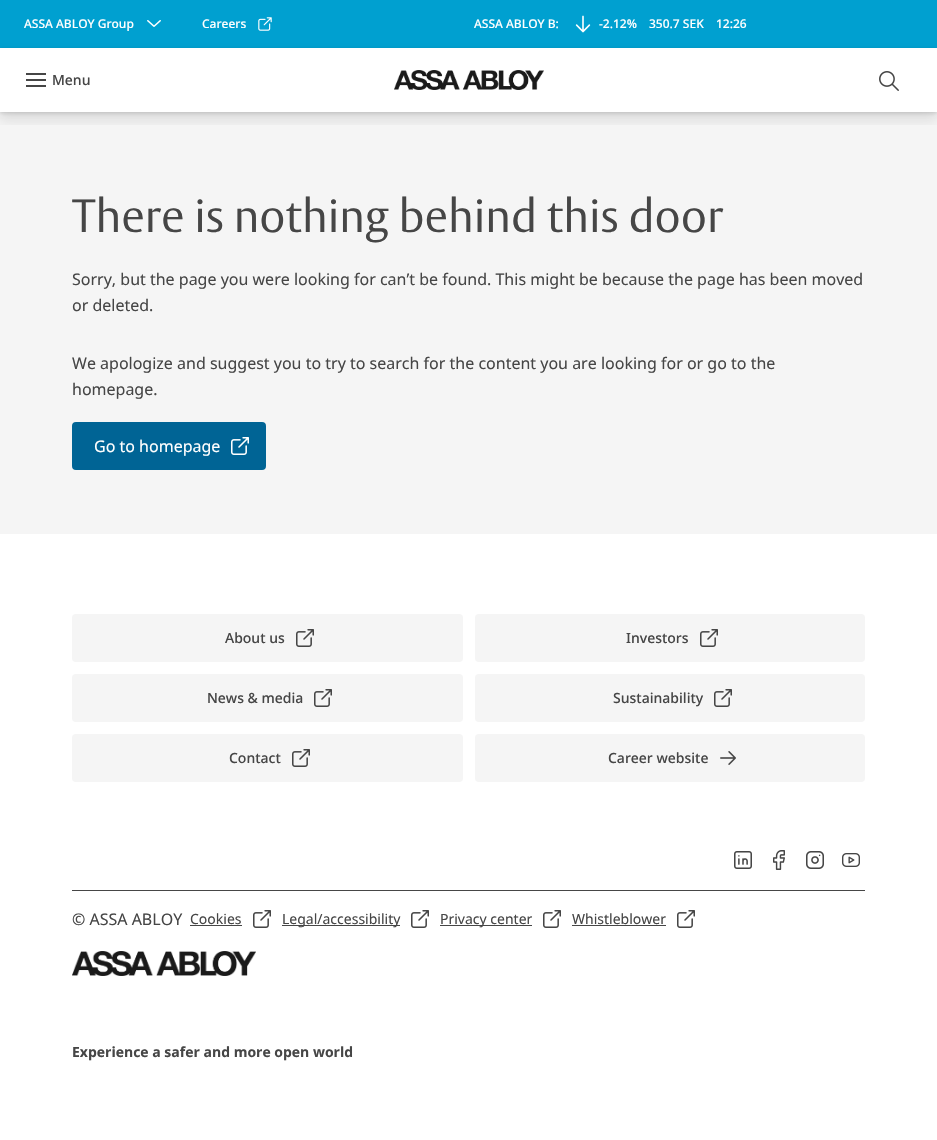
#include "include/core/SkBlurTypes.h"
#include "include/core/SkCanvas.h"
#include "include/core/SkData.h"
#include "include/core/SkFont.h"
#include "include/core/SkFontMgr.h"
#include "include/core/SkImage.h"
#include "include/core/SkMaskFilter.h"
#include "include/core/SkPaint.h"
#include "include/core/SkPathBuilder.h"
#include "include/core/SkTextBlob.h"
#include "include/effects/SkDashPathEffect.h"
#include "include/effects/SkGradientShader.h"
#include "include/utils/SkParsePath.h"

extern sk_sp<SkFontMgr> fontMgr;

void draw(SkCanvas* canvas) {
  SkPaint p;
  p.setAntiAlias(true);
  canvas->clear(SK_ColorWHITE);
  p.setColor(SkColorSetRGB(0, 160, 208));
  canvas->drawRect(SkRect::MakeLTRB(0, 0, 937, 48), p);
  canvas->drawImageRect(SkImages::DeferredFromEncodedData(SkData::MakeFromFileName("images/1.png")), SkRect::MakeLTRB(147, 20, 161, 27), SkSamplingOptions());
  canvas->drawImageRect(SkImages::DeferredFromEncodedData(SkData::MakeFromFileName("images/2.png")), SkRect::MakeLTRB(258, 17, 272, 31), SkSamplingOptions());
  canvas->drawImageRect(SkImages::DeferredFromEncodedData(SkData::MakeFromFileName("images/3.png")), SkRect::MakeLTRB(575, 15, 591, 33), SkSamplingOptions());
  p.setColor(SkColorSetRGB(70, 70, 70));
  canvas->drawRect(SkRect::MakeLTRB(26, 73, 46, 75), p);
  canvas->drawRect(SkRect::MakeLTRB(26, 79, 46, 81), p);
  canvas->drawRect(SkRect::MakeLTRB(26, 85, 46, 87), p);
  canvas->drawImageRect(SkImages::DeferredFromEncodedData(SkData::MakeFromFileName("images/4.png")), SkRect::MakeLTRB(394, 70, 544, 90), SkSamplingOptions());
  p.setColor(SkColorSetRGB(245, 245, 245));
  canvas->drawRect(SkRect::MakeLTRB(0, 112, 937, 534), p);
  canvas->save();
  canvas->clipPath(SkPathBuilder(SkPathFillType::kEvenOdd).moveTo(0, 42).lineTo(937, 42).lineTo(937, 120).lineTo(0, 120).close().moveTo(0, 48).lineTo(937, 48).lineTo(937, 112).lineTo(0, 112).close().detach(), true);
  p.setColor(SkColorSetARGB(38, 0, 0, 0));
  p.setMaskFilter(SkMaskFilter::MakeBlur(kNormal_SkBlurStyle, 2));
  canvas->drawRect(SkRect::MakeLTRB(0, 49, 937, 113), p);
  p.setMaskFilter(nullptr);
  canvas->restore();
  canvas->save();
  canvas->clipRect(SkRect::MakeLTRB(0, 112, 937, 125));
  p.setColor(SkColorSetARGB(26, 0, 0, 0));
  p.setMaskFilter(SkMaskFilter::MakeBlur(kNormal_SkBlurStyle, 6));
  canvas->drawRect(SkRect::MakeLTRB(0, 56, 937, 120), p);
  p.setMaskFilter(nullptr);
  canvas->restore();
  canvas->drawImageRect(SkImages::DeferredFromEncodedData(SkData::MakeFromFileName("images/5.png")), SkRect::MakeLTRB(879, 71, 899, 91), SkSamplingOptions());
  p.setColor(SkColorSetRGB(0, 100, 149));
  canvas->drawRoundRect(SkRect::MakeLTRB(73, 423, 265, 469), 3, 3, p);
  p.setStyle(SkPaint::kStroke_Style);
  p.setStrokeWidth(2);
  canvas->drawRoundRect(SkRect::MakeLTRB(73, 423, 265, 469), 3, 3, p);
  canvas->drawImageRect(SkImages::DeferredFromEncodedData(SkData::MakeFromFileName("images/6.png")), SkRect::MakeLTRB(231, 437, 249, 455), SkSamplingOptions());
  p.setStyle(SkPaint::kFill_Style);
  p.setColor(SkColorSetRGB(245, 245, 245));
  canvas->drawRoundRect(SkRect::MakeLTRB(72, 614, 463, 662), 4, 4, p);
  canvas->drawImageRect(SkImages::DeferredFromEncodedData(SkData::MakeFromFileName("images/7.png")), SkRect::MakeLTRB(296, 629, 314, 647), SkSamplingOptions());
  canvas->drawRoundRect(SkRect::MakeLTRB(475, 614, 865, 662), 4, 4, p);
  canvas->drawImageRect(SkImages::DeferredFromEncodedData(SkData::MakeFromFileName("images/7.png")), SkRect::MakeLTRB(700, 629, 718, 647), SkSamplingOptions());
  canvas->drawRoundRect(SkRect::MakeLTRB(72, 674, 463, 722), 4, 4, p);
  canvas->drawImageRect(SkImages::DeferredFromEncodedData(SkData::MakeFromFileName("images/7.png")), SkRect::MakeLTRB(314, 689, 332, 707), SkSamplingOptions());
  canvas->drawRoundRect(SkRect::MakeLTRB(475, 674, 865, 722), 4, 4, p);
  canvas->drawImageRect(SkImages::DeferredFromEncodedData(SkData::MakeFromFileName("images/7.png")), SkRect::MakeLTRB(714, 689, 732, 707), SkSamplingOptions());
  canvas->drawRoundRect(SkRect::MakeLTRB(72, 734, 463, 782), 4, 4, p);
  canvas->drawImageRect(SkImages::DeferredFromEncodedData(SkData::MakeFromFileName("images/7.png")), SkRect::MakeLTRB(292, 749, 310, 767), SkSamplingOptions());
  canvas->drawRoundRect(SkRect::MakeLTRB(475, 734, 865, 782), 4, 4, p);
  canvas->drawImageRect(SkImages::DeferredFromEncodedData(SkData::MakeFromFileName("images/8.png")), SkRect::MakeLTRB(720, 751, 736, 765), SkSamplingOptions());
  canvas->drawImageRect(SkImages::DeferredFromEncodedData(SkData::MakeFromFileName("images/9.png")), SkRect::MakeLTRB(734, 851, 752, 869), SkSamplingOptions());
  canvas->drawImageRect(SkImages::DeferredFromEncodedData(SkData::MakeFromFileName("images/10.png")), SkRect::MakeLTRB(773, 850, 785, 870), SkSamplingOptions());
  canvas->drawImageRect(SkImages::DeferredFromEncodedData(SkData::MakeFromFileName("images/11.png")), SkRect::MakeLTRB(806, 851, 824, 869), SkSamplingOptions());
  canvas->drawImageRect(SkImages::DeferredFromEncodedData(SkData::MakeFromFileName("images/12.png")), SkRect::MakeLTRB(842, 853, 860, 867), SkSamplingOptions());
  p.setColor(SkColorSetRGB(70, 70, 70));
  canvas->drawRect(SkRect::MakeLTRB(72, 890, 865, 891), p);
  canvas->drawRect(SkRect::MakeLTRB(190, 925, 242, 926), p);
  canvas->drawImageRect(SkImages::DeferredFromEncodedData(SkData::MakeFromFileName("images/13.png")), SkRect::MakeLTRB(253, 910, 271, 928), SkSamplingOptions());
  canvas->drawRect(SkRect::MakeLTRB(282, 925, 400, 926), p);
  canvas->drawImageRect(SkImages::DeferredFromEncodedData(SkData::MakeFromFileName("images/13.png")), SkRect::MakeLTRB(411, 910, 429, 928), SkSamplingOptions());
  canvas->drawRect(SkRect::MakeLTRB(440, 925, 532, 926), p);
  canvas->drawImageRect(SkImages::DeferredFromEncodedData(SkData::MakeFromFileName("images/13.png")), SkRect::MakeLTRB(543, 910, 561, 928), SkSamplingOptions());
  canvas->drawRect(SkRect::MakeLTRB(572, 925, 666, 926), p);
  canvas->drawImageRect(SkImages::DeferredFromEncodedData(SkData::MakeFromFileName("images/13.png")), SkRect::MakeLTRB(677, 910, 695, 928), SkSamplingOptions());
  canvas->drawImageRect(SkImages::DeferredFromEncodedData(SkData::MakeFromFileName("images/14.png")), SkRect::MakeLTRB(72, 951, 256, 976), SkSamplingOptions());
  SkFont font1(fontMgr->matchFamilyStyle("Noto Sans", SkFontStyle(500, SkFontStyle::kNormal_Width, SkFontStyle::kUpright_Slant)), 12);
  font1.setSubpixel(true);
  p.setColor(SK_ColorWHITE);
  canvas->drawString("ASSA ABLOY Group", 24, 28, font1, p);
  canvas->drawString("Careers", 202, 28, font1, p);
  canvas->drawString("ASSA ABLOY B:", 474, 28, font1, p);
  canvas->drawString("-2.12%", 599, 28, font1, p);
  canvas->drawString("350.7 SEK", 649, 28, font1, p);
  canvas->drawString("12:26", 716, 28, font1, p);
  SkFont font2(fontMgr->matchFamilyStyle("Noto Sans", SkFontStyle(500, SkFontStyle::kNormal_Width, SkFontStyle::kUpright_Slant)), 14);
  font2.setSubpixel(true);
  p.setColor(SkColorSetRGB(70, 70, 70));
  canvas->drawString("Menu", 52, 85, font2, p);
  SkFont font3(fontMgr->matchFamilyStyle("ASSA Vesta", SkFontStyle(300, SkFontStyle::kNormal_Width, SkFontStyle::kUpright_Slant)), 46);
  font3.setSubpixel(true);
  canvas->drawString("There is nothing behind this door", 72, 232, font3, p);
  SkFont font4(fontMgr->matchFamilyStyle("Noto Sans", SkFontStyle::Normal()), 16);
  font4.setSubpixel(true);
  canvas->drawString("Sorry, but the page you were looking for can’t be found. This might be because the page has been moved", 72, 285, font4, p);
  canvas->drawString("or deleted.", 72, 311, font4, p);
  canvas->drawString("We apologize and suggest you to try to search for the content you are looking for or go to the", 72, 369, font4, p);
  canvas->drawString("homepage.", 72, 395, font4, p);
  p.setColor(SK_ColorWHITE);
  canvas->drawString("Go to homepage", 94, 452, font4, p);
  p.setColor(SkColorSetRGB(70, 70, 70));
  canvas->drawString("About us", 225, 643, font2, p);
  canvas->drawString("Investors", 626, 643, font2, p);
  canvas->drawString("News & media", 207, 703, font2, p);
  canvas->drawString("Sustainability", 613, 703, font2, p);
  canvas->drawString("Contact", 229, 763, font2, p);
  canvas->drawString("Career website", 608, 763, font2, p);
  canvas->drawString("© ASSA ABLOY", 72, 925, font4, p);
  SkFont font5(fontMgr->matchFamilyStyle("Noto Sans", SkFontStyle::Normal()), 14);
  font5.setSubpixel(true);
  canvas->drawString("Cookies", 190, 924, font5, p);
  canvas->drawString("Legal/accessibility", 282, 924, font5, p);
  canvas->drawString("Privacy center", 440, 924, font5, p);
  canvas->drawString("Whistleblower", 572, 924, font5, p);
  SkFont font6(fontMgr->matchFamilyStyle("Noto Sans", SkFontStyle::Bold()), 14);
  font6.setSubpixel(true);
  canvas->drawString("Experience a safer and more open world", 72, 1057, font6, p);
}
